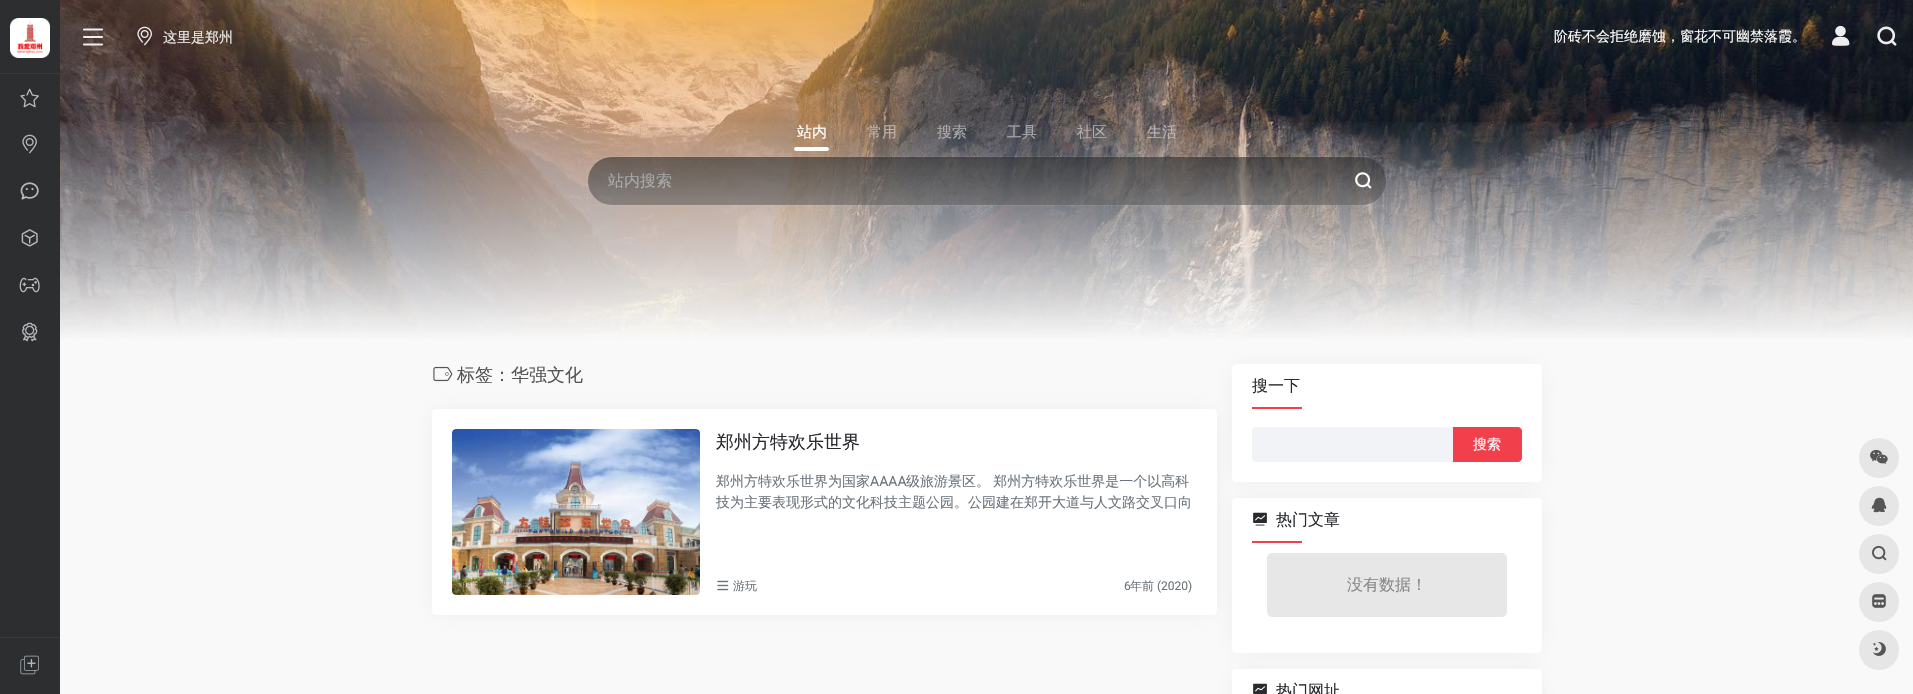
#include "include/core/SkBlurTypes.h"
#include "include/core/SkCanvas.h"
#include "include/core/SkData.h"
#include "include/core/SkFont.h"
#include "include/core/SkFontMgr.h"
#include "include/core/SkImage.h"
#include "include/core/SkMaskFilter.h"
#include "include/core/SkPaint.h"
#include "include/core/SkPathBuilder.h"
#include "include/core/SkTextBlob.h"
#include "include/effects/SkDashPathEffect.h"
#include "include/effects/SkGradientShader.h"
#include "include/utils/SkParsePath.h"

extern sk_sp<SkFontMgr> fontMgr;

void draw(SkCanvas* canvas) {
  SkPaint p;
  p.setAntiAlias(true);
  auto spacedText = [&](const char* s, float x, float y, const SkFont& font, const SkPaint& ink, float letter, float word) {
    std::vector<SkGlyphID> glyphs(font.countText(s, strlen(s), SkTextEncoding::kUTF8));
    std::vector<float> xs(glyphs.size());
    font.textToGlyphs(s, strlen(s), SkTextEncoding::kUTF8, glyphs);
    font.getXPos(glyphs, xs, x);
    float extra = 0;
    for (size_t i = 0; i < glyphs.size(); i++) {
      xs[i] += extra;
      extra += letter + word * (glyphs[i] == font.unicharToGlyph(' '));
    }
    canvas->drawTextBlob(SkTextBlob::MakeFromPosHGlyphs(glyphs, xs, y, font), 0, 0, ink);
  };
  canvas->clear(SkColorSetRGB(249, 249, 249));
  p.setColor(SkColorSetRGB(44, 46, 47));
  canvas->drawRect(SkRect::MakeLTRB(0, 0, 60, 694), p);
  p.setColor(SkColorSetRGB(57, 58, 59));
  canvas->drawRect(SkRect::MakeLTRB(0, 73, 60, 74), p);
  canvas->drawImageRect(SkImages::DeferredFromEncodedData(SkData::MakeFromFileName("images/1.png")), SkRect::MakeLTRB(10, 18, 50, 58), SkSamplingOptions());
  canvas->drawImageRect(SkImages::DeferredFromEncodedData(SkData::MakeFromFileName("images/2.png")), SkRect::MakeLTRB(20, 88, 39, 108), SkSamplingOptions());
  canvas->drawImageRect(SkImages::DeferredFromEncodedData(SkData::MakeFromFileName("images/3.png")), SkRect::MakeLTRB(22, 134, 37, 154), SkSamplingOptions());
  canvas->drawImageRect(SkImages::DeferredFromEncodedData(SkData::MakeFromFileName("images/4.png")), SkRect::MakeLTRB(20, 182, 39, 200), SkSamplingOptions());
  canvas->drawImageRect(SkImages::DeferredFromEncodedData(SkData::MakeFromFileName("images/5.png")), SkRect::MakeLTRB(21, 229, 38, 247), SkSamplingOptions());
  canvas->drawImageRect(SkImages::DeferredFromEncodedData(SkData::MakeFromFileName("images/6.png")), SkRect::MakeLTRB(19, 277, 40, 293), SkSamplingOptions());
  canvas->drawImageRect(SkImages::DeferredFromEncodedData(SkData::MakeFromFileName("images/7.png")), SkRect::MakeLTRB(22, 322, 38, 342), SkSamplingOptions());
  canvas->drawRect(SkRect::MakeLTRB(0, 637, 60, 638), p);
  canvas->drawImageRect(SkImages::DeferredFromEncodedData(SkData::MakeFromFileName("images/8.png")), SkRect::MakeLTRB(20, 655, 39, 675), SkSamplingOptions());
  canvas->drawImageRect(SkImages::DeferredFromEncodedData(SkData::MakeFromFileName("images/12.png")), SkRect::MakeLTRB(60, 0, 1913, 340), SkSamplingOptions());
  p.setStyle(SkPaint::kStroke_Style);
  p.setStrokeWidth(2.2f);
  p.setStrokeCap(SkPaint::kRound_Cap);
  p.setStrokeJoin(SkPaint::kRound_Join);
  p.setColor(SkColorSetRGB(238, 238, 238));
  canvas->drawPath(SkPathBuilder().moveTo(84, 29.5f).lineTo(102, 29.5f).moveTo(84, 37).lineTo(102, 37).moveTo(84, 44.5f).lineTo(102, 44.5f).detach(), p);
  canvas->drawImageRect(SkImages::DeferredFromEncodedData(SkData::MakeFromFileName("images/9.png")), SkRect::MakeLTRB(137, 26, 152, 46), SkSamplingOptions());
  canvas->drawImageRect(SkImages::DeferredFromEncodedData(SkData::MakeFromFileName("images/10.png")), SkRect::MakeLTRB(1832, 25, 1850, 46), SkSamplingOptions());
  canvas->drawImageRect(SkImages::DeferredFromEncodedData(SkData::MakeFromFileName("images/11.png")), SkRect::MakeLTRB(1877, 26, 1897, 46), SkSamplingOptions());
  p.setStyle(SkPaint::kFill_Style);
  p.setColor(SK_ColorWHITE);
  canvas->drawRoundRect(SkRect::MakeLTRB(794, 147, 829, 151), 2, 2, p);
  p.setColor(SkColorSetARGB(153, 0, 0, 0));
  canvas->drawRoundRect(SkRect::MakeLTRB(588, 157, 1386, 205), 24, 24, p);
  p.setStyle(SkPaint::kStroke_Style);
  p.setStrokeWidth(1);
  p.setStrokeCap(SkPaint::kButt_Cap);
  p.setStrokeJoin(SkPaint::kMiter_Join);
  p.setColor(SkColorSetARGB(13, 255, 255, 255));
  canvas->drawRect(SkRect::MakeLTRB(587.5f, 156.5f, 1386.5f, 205.5f), p);
  canvas->drawImageRect(SkImages::DeferredFromEncodedData(SkData::MakeFromFileName("images/13.png")), SkRect::MakeLTRB(1355, 172, 1372, 189), SkSamplingOptions());
  canvas->drawImageRect(SkImages::DeferredFromEncodedData(SkData::MakeFromFileName("images/14.png")), SkRect::MakeLTRB(433, 366, 453, 382), SkSamplingOptions());
  p.setStyle(SkPaint::kFill_Style);
  p.setColor(SkColorSetARGB(51, 158, 158, 158));
  p.setMaskFilter(SkMaskFilter::MakeBlur(kNormal_SkBlurStyle, 10));
  canvas->drawRect(SkRect::MakeLTRB(437, 414, 1212, 610), p);
  p.setMaskFilter(nullptr);
  p.setColor(SK_ColorWHITE);
  canvas->drawRoundRect(SkRect::MakeLTRB(432, 409, 1217, 615), 4, 4, p);
  canvas->drawImageRect(SkImages::DeferredFromEncodedData(SkData::MakeFromFileName("images/15.png")), SkRect::MakeLTRB(452, 429, 700, 595), SkSamplingOptions());
  canvas->drawImageRect(SkImages::DeferredFromEncodedData(SkData::MakeFromFileName("images/16.png")), SkRect::MakeLTRB(717, 580, 729, 591), SkSamplingOptions());
  p.setColor(SkColorSetRGB(230, 230, 230));
  canvas->drawCircle(1879, 458, 20, p);
  canvas->drawImageRect(SkImages::DeferredFromEncodedData(SkData::MakeFromFileName("images/19.png")), SkRect::MakeLTRB(1870, 449, 1888, 464), SkSamplingOptions());
  canvas->drawCircle(1879, 506, 20, p);
  canvas->drawImageRect(SkImages::DeferredFromEncodedData(SkData::MakeFromFileName("images/20.png")), SkRect::MakeLTRB(1871, 497, 1887, 513), SkSamplingOptions());
  canvas->drawCircle(1879, 554, 20, p);
  canvas->drawImageRect(SkImages::DeferredFromEncodedData(SkData::MakeFromFileName("images/21.png")), SkRect::MakeLTRB(1872, 545, 1887, 561), SkSamplingOptions());
  canvas->drawCircle(1879, 602, 20, p);
  canvas->drawImageRect(SkImages::DeferredFromEncodedData(SkData::MakeFromFileName("images/22.png")), SkRect::MakeLTRB(1872, 594, 1886, 608), SkSamplingOptions());
  canvas->drawCircle(1879, 650, 20, p);
  canvas->drawImageRect(SkImages::DeferredFromEncodedData(SkData::MakeFromFileName("images/23.png")), SkRect::MakeLTRB(1873, 642, 1886, 656), SkSamplingOptions());
  SkFont font1(fontMgr->matchFamilyStyle("WenQuanYi Zen Hei", SkFontStyle(500, SkFontStyle::kNormal_Width, SkFontStyle::kUpright_Slant)), 14);
  font1.setSubpixel(true);
  p.setColor(SkColorSetRGB(238, 238, 238));
  canvas->drawString("这里是郑州", 163, 42, font1, p);
  p.setColor(SK_ColorWHITE);
  canvas->drawString("阶砖不会拒绝磨蚀，窗花不可幽禁落霞。", 1554, 41, font1, p);
  SkFont font2(fontMgr->matchFamilyStyle("WenQuanYi Zen Hei", SkFontStyle(500, SkFontStyle::kNormal_Width, SkFontStyle::kUpright_Slant)), 15);
  font2.setSubpixel(true);
  canvas->drawString("站内", 797, 137, font2, p);
  p.setColor(SkColorSetRGB(186, 175, 167));
  canvas->drawString("常用", 867, 137, font2, p);
  p.setColor(SkColorSetRGB(164, 164, 167));
  canvas->drawString("搜索", 937, 137, font2, p);
  canvas->drawString("工具", 1007, 137, font2, p);
  p.setColor(SkColorSetRGB(172, 168, 170));
  canvas->drawString("社区", 1077, 137, font2, p);
  p.setColor(SkColorSetRGB(182, 177, 176));
  canvas->drawString("生活", 1147, 137, font2, p);
  canvas->save();
  canvas->clipRect(SkRect::MakeLTRB(608, 171, 1366, 192));
  SkFont font3(fontMgr->matchFamilyStyle("WenQuanYi Zen Hei", SkFontStyle(500, SkFontStyle::kNormal_Width, SkFontStyle::kUpright_Slant)), 16);
  font3.setSubpixel(true);
  p.setColor(SkColorSetRGB(136, 138, 143));
  canvas->drawString("站内搜索", 608, 186, font3, p);
  canvas->restore();
  {
    const SkColor colors[] = {SkColorSetRGB(249, 249, 249), SkColorSetARGB(0, 249, 249, 249)};
    const float stops[] = {0, 0.8f};
    const SkPoint ends[] = {{987, 341}, {987, 61}};
    p.setShader(SkGradientShader::MakeLinear(ends, colors, stops, 2, SkTileMode::kClamp));
    p.setAlpha(255);
  }
  canvas->drawRect(SkRect::MakeLTRB(60, 122, 1913, 340), p);
  SkFont font4(fontMgr->matchFamilyStyle("WenQuanYi Zen Hei", SkFontStyle(500, SkFontStyle::kNormal_Width, SkFontStyle::kUpright_Slant)), 18);
  font4.setSubpixel(true);
  p.setShader(nullptr);
  p.setColor(SkColorSetRGB(85, 85, 85));
  canvas->drawString("标签：华强文化", 457, 381, font4, p);
  p.setColor(SkColorSetRGB(40, 42, 45));
  canvas->drawString("郑州方特欢乐世界", 716, 448, font4, p);
  p.setColor(SkColorSetRGB(108, 117, 125));
  canvas->drawString("郑州方特欢乐世界为国家", 716, 486, font1, p);
  SkFont font5(fontMgr->matchFamilyStyle("Roboto", SkFontStyle::Normal()), 14);
  font5.setSubpixel(true);
  canvas->drawString("AAAA", 870, 486, font5, p);
  spacedText("级旅游景区。 郑州方特欢乐世界是一个以高科", 906, 486, font1, p, 0, -1);
  canvas->drawString("技为主要表现形式的文化科技主题公园。公园建在郑开大道与人文路交叉口向", 716, 507, font1, p);
  SkFont font6(fontMgr->matchFamilyStyle("WenQuanYi Zen Hei", SkFontStyle(500, SkFontStyle::kNormal_Width, SkFontStyle::kUpright_Slant)), 12);
  font6.setSubpixel(true);
  canvas->drawString("游玩", 733, 590, font6, p);
  SkFont font7(fontMgr->matchFamilyStyle("Roboto", SkFontStyle::Normal()), 12);
  font7.setSubpixel(true);
  canvas->drawString("6", 1124, 590, font7, p);
  canvas->drawString("年前", 1130, 590, font6, p);
  canvas->drawString("(2020)", 1157, 590, font7, p);
  p.setColor(SkColorSetARGB(51, 158, 158, 158));
  p.setMaskFilter(SkMaskFilter::MakeBlur(kNormal_SkBlurStyle, 10));
  canvas->drawRect(SkRect::MakeLTRB(1237, 369, 1537, 477), p);
  p.setMaskFilter(nullptr);
  p.setColor(SK_ColorWHITE);
  canvas->drawRoundRect(SkRect::MakeLTRB(1232, 364, 1542, 482), 4, 4, p);
  p.setColor(SkColorSetRGB(40, 42, 45));
  canvas->drawString("搜一下", 1252, 391, font3, p);
  p.setColor(SkColorSetRGB(241, 64, 75));
  canvas->drawRect(SkRect::MakeLTRB(1252, 407, 1302, 409), p);
  canvas->drawPath(SkPathBuilder().moveTo(1452.5f, 427.5f).lineTo(1518, 427.5f).cubicTo(1520, 427.5f, 1521.5f, 429, 1521.5f, 431).lineTo(1521.5f, 458).cubicTo(1521.5f, 460, 1520, 461.5f, 1518, 461.5f).lineTo(1452.5f, 461.5f).close().detach(), p);
  p.setStyle(SkPaint::kStroke_Style);
  canvas->drawPath(SkPathBuilder().moveTo(1452.5f, 427.5f).lineTo(1518, 427.5f).cubicTo(1520, 427.5f, 1521.5f, 429, 1521.5f, 431).lineTo(1521.5f, 458).cubicTo(1521.5f, 460, 1520, 461.5f, 1518, 461.5f).lineTo(1452.5f, 461.5f).close().detach(), p);
  p.setStyle(SkPaint::kFill_Style);
  p.setColor(SkColorSetRGB(241, 243, 246));
  canvas->drawPath(SkPathBuilder().moveTo(1256, 427.5f).lineTo(1452.5f, 427.5f).lineTo(1452.5f, 461.5f).lineTo(1256, 461.5f).cubicTo(1254, 461.5f, 1252.5f, 460, 1252.5f, 458).lineTo(1252.5f, 431).cubicTo(1252.5f, 429, 1254, 427.5f, 1256, 427.5f).close().detach(), p);
  p.setStyle(SkPaint::kStroke_Style);
  canvas->drawPath(SkPathBuilder().moveTo(1256, 427.5f).lineTo(1452.5f, 427.5f).lineTo(1452.5f, 461.5f).lineTo(1256, 461.5f).cubicTo(1254, 461.5f, 1252.5f, 460, 1252.5f, 458).lineTo(1252.5f, 431).cubicTo(1252.5f, 429, 1254, 427.5f, 1256, 427.5f).close().detach(), p);
  p.setStyle(SkPaint::kFill_Style);
  p.setColor(SK_ColorWHITE);
  canvas->drawString("搜索", 1473, 449, font1, p);
  p.setColor(SkColorSetARGB(51, 158, 158, 158));
  p.setMaskFilter(SkMaskFilter::MakeBlur(kNormal_SkBlurStyle, 10));
  canvas->drawRect(SkRect::MakeLTRB(1237, 503, 1537, 648), p);
  p.setMaskFilter(nullptr);
  p.setColor(SK_ColorWHITE);
  canvas->drawRoundRect(SkRect::MakeLTRB(1232, 498, 1542, 653), 4, 4, p);
  canvas->drawImageRect(SkImages::DeferredFromEncodedData(SkData::MakeFromFileName("images/17.png")), SkRect::MakeLTRB(1253, 512, 1267, 526), SkSamplingOptions());
  p.setColor(SkColorSetRGB(40, 42, 45));
  canvas->drawString("热门文章", 1276, 525, font3, p);
  p.setColor(SkColorSetRGB(241, 64, 75));
  canvas->drawRect(SkRect::MakeLTRB(1252, 541, 1302, 543), p);
  p.setColor(SkColorSetRGB(231, 231, 231));
  canvas->drawRoundRect(SkRect::MakeLTRB(1267, 553, 1507, 617), 5, 5, p);
  p.setColor(SkColorSetRGB(136, 136, 136));
  canvas->drawString("没有数据！", 1347, 590, font3, p);
  p.setColor(SkColorSetARGB(51, 158, 158, 158));
  p.setMaskFilter(SkMaskFilter::MakeBlur(kNormal_SkBlurStyle, 10));
  canvas->drawRect(SkRect::MakeLTRB(1237, 674, 1537, 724), p);
  p.setMaskFilter(nullptr);
  p.setColor(SK_ColorWHITE);
  canvas->drawRoundRect(SkRect::MakeLTRB(1232, 669, 1542, 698), 4, 4, p);
  canvas->drawImageRect(SkImages::DeferredFromEncodedData(SkData::MakeFromFileName("images/18.png")), SkRect::MakeLTRB(1253, 683, 1267, 694), SkSamplingOptions());
  p.setColor(SkColorSetRGB(40, 42, 45));
  canvas->drawString("热门网址", 1276, 696, font3, p);
}
